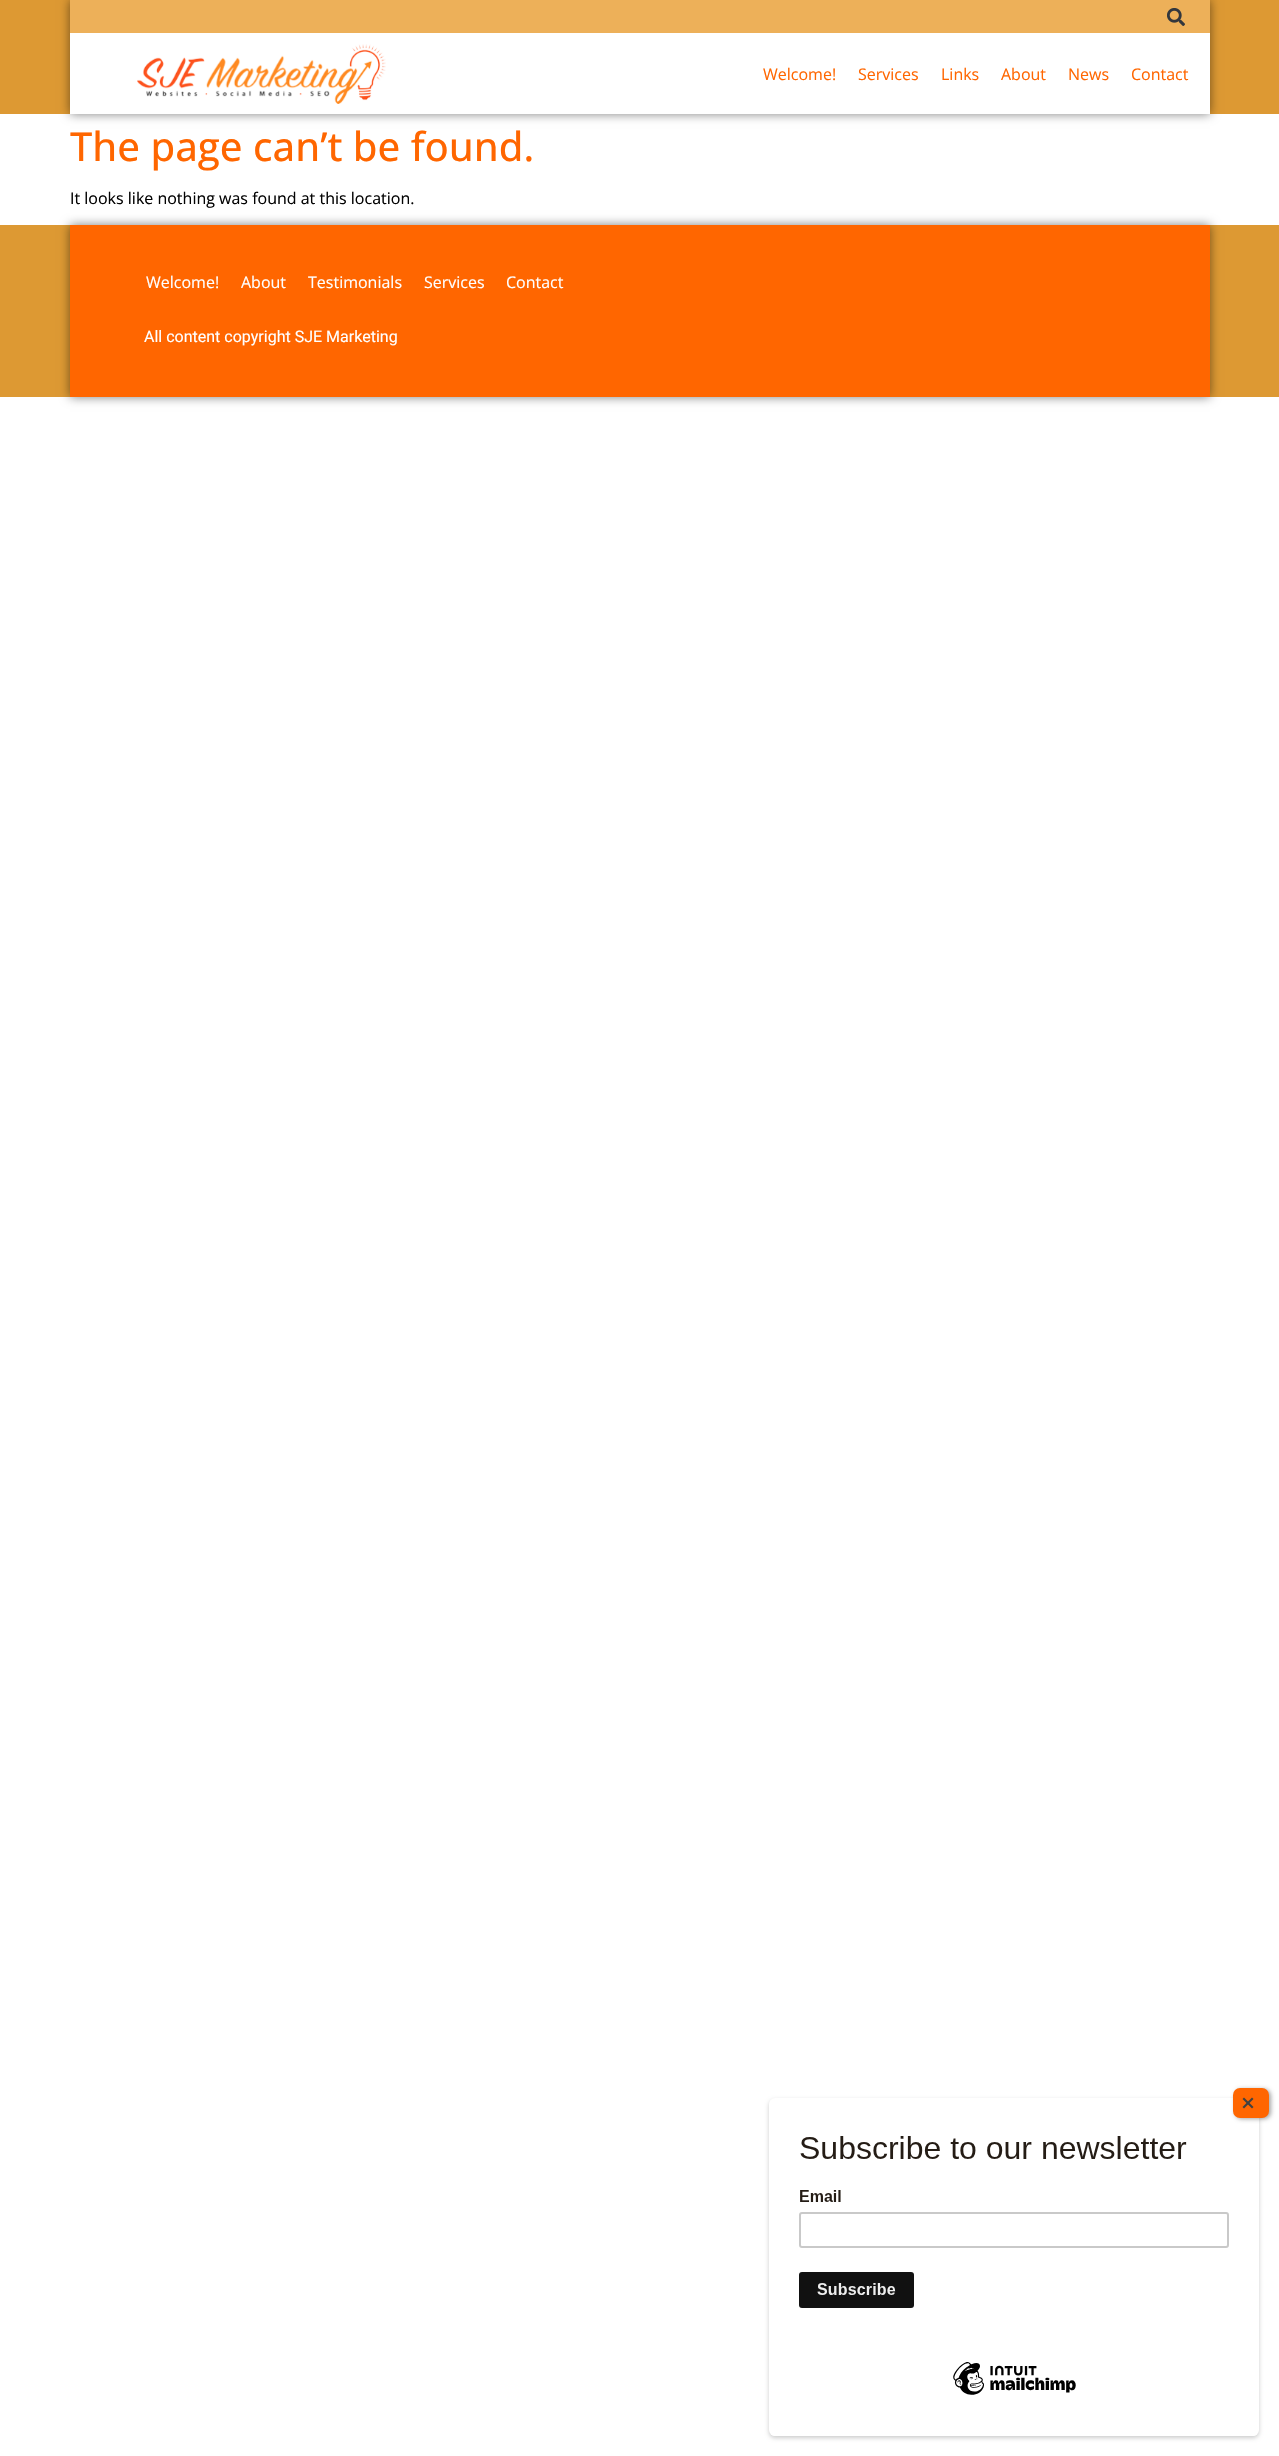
#include "include/core/SkBlurTypes.h"
#include "include/core/SkCanvas.h"
#include "include/core/SkData.h"
#include "include/core/SkFont.h"
#include "include/core/SkFontMgr.h"
#include "include/core/SkImage.h"
#include "include/core/SkMaskFilter.h"
#include "include/core/SkPaint.h"
#include "include/core/SkPathBuilder.h"
#include "include/core/SkTextBlob.h"
#include "include/effects/SkDashPathEffect.h"
#include "include/effects/SkGradientShader.h"
#include "include/utils/SkParsePath.h"

extern sk_sp<SkFontMgr> fontMgr;

void draw(SkCanvas* canvas) {
  SkPaint p;
  p.setAntiAlias(true);
  canvas->clear(SK_ColorWHITE);
  p.setColor(SkColorSetRGB(221, 153, 51));
  canvas->drawRect(SkRect::MakeLTRB(0, 0, 1279, 114), p);
  p.setColor(SkColorSetARGB(128, 0, 0, 0));
  p.setMaskFilter(SkMaskFilter::MakeBlur(kNormal_SkBlurStyle, 5));
  canvas->drawRect(SkRect::MakeLTRB(70, 0, 1210, 114), p);
  p.setMaskFilter(nullptr);
  p.setColor(SkColorSetRGB(237, 176, 89));
  canvas->drawRect(SkRect::MakeLTRB(70, 0, 1210, 33), p);
  canvas->drawImageRect(SkImages::DeferredFromEncodedData(SkData::MakeFromFileName("images/1.png")), SkRect::MakeLTRB(1167, 8, 1185, 26), SkSamplingOptions());
  p.setColor(SK_ColorWHITE);
  canvas->drawRect(SkRect::MakeLTRB(70, 33, 1210, 114), p);
  canvas->drawImageRect(SkImages::DeferredFromEncodedData(SkData::MakeFromFileName("images/2.png")), SkRect::MakeLTRB(137, 44, 386, 104), SkSamplingOptions());
  p.setColor(SkColorSetRGB(221, 153, 51));
  canvas->drawRect(SkRect::MakeLTRB(0, 225, 1279, 397), p);
  p.setColor(SkColorSetARGB(128, 0, 0, 0));
  p.setMaskFilter(SkMaskFilter::MakeBlur(kNormal_SkBlurStyle, 5));
  canvas->drawRect(SkRect::MakeLTRB(70, 225, 1210, 397), p);
  p.setMaskFilter(nullptr);
  p.setColor(SkColorSetRGB(255, 102, 0));
  canvas->drawRect(SkRect::MakeLTRB(70, 225, 1210, 397), p);
  p.setColor(SkColorSetARGB(51, 0, 0, 0));
  p.setMaskFilter(SkMaskFilter::MakeBlur(kNormal_SkBlurStyle, 2));
  canvas->drawRoundRect(SkRect::MakeLTRB(769, 2100, 1259, 2438), 6, 6, p);
  p.setMaskFilter(nullptr);
  p.setColor(SK_ColorWHITE);
  canvas->drawRoundRect(SkRect::MakeLTRB(769, 2098, 1259, 2436), 6, 6, p);
  p.setColor(SkColorSetARGB(89, 0, 0, 0));
  p.setMaskFilter(SkMaskFilter::MakeBlur(kNormal_SkBlurStyle, 2));
  canvas->drawRoundRect(SkRect::MakeLTRB(1235, 2089, 1271, 2119), 7, 7, p);
  p.setMaskFilter(nullptr);
  p.setColor(SkColorSetRGB(255, 102, 0));
  canvas->drawRoundRect(SkRect::MakeLTRB(1233, 2088, 1269, 2118), 7, 7, p);
  p.setColor(SkColorSetRGB(65, 65, 65));
  canvas->drawPath(SkPathBuilder().moveTo(1252, 2097.5f).lineTo(1253.5f, 2099).lineTo(1244, 2108.5f).lineTo(1242.5f, 2107).close().detach(), p);
  canvas->drawPath(SkPathBuilder().moveTo(1242.5f, 2099).lineTo(1244, 2097.5f).lineTo(1253.5f, 2107).lineTo(1252, 2108.5f).close().detach(), p);
  canvas->drawImageRect(SkImages::DeferredFromEncodedData(SkData::MakeFromFileName("images/3.png")), SkRect::MakeLTRB(772, 2136, 1256, 2436), SkSamplingOptions());
  SkFont font1(fontMgr->matchFamilyStyle("Open Sans", SkFontStyle::Normal()), 16);
  font1.setSubpixel(true);
  p.setColor(SkColorSetRGB(255, 102, 0));
  canvas->drawString("Welcome!", 763, 80, font1, p);
  canvas->drawString("Services", 858, 80, font1, p);
  canvas->drawString("Links", 941, 80, font1, p);
  canvas->drawString("About", 1001, 80, font1, p);
  canvas->drawString("News", 1068, 80, font1, p);
  canvas->drawString("Contact", 1131, 80, font1, p);
  SkFont font2(fontMgr->matchFamilyStyle("Open Sans", SkFontStyle(500, SkFontStyle::kNormal_Width, SkFontStyle::kUpright_Slant)), 40);
  font2.setSubpixel(true);
  canvas->drawString("The page can’t be found.", 70, 161, font2, p);
  p.setColor(SkColorSetRGB(3, 3, 3));
  canvas->drawString("It looks like nothing was found at this location.", 70, 204, font1, p);
  p.setColor(SK_ColorWHITE);
  canvas->drawString("Welcome!", 146, 288, font1, p);
  canvas->drawString("About", 241, 288, font1, p);
  canvas->drawString("Testimonials", 308, 288, font1, p);
  canvas->drawString("Services", 424, 288, font1, p);
  canvas->drawString("Contact", 506, 288, font1, p);
  SkFont font3(fontMgr->matchFamilyStyle("Roboto", SkFontStyle::Normal()), 16);
  font3.setSubpixel(true);
  canvas->drawString("All content copyright SJE Marketing", 144, 342, font3, p);
}
